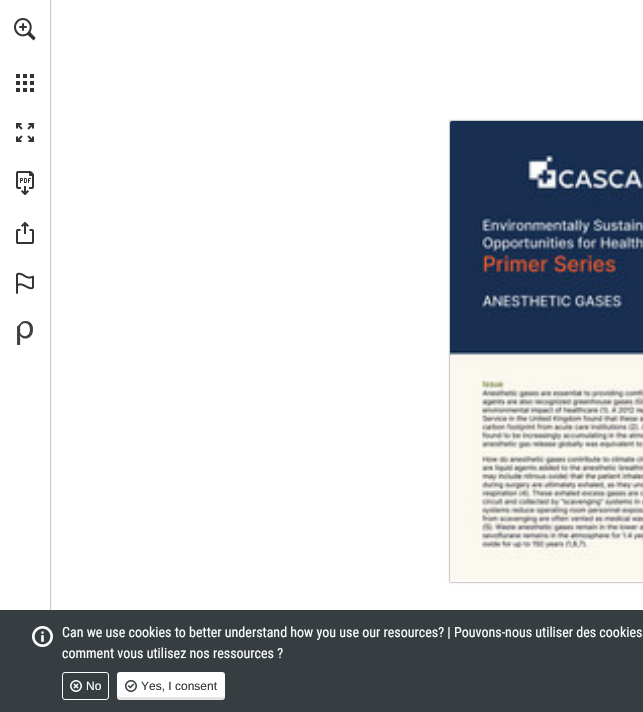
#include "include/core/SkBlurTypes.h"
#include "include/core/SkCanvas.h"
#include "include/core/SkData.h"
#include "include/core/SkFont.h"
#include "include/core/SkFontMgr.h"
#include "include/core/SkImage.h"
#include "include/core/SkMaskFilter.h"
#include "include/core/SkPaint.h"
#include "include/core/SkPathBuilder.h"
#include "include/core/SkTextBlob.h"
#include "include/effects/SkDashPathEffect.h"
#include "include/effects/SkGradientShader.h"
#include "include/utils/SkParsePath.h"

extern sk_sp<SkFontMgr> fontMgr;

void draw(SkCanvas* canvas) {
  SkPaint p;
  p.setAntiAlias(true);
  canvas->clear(SK_ColorWHITE);
  p.setColor(SkColorSetARGB(51, 0, 0, 0));
  p.setMaskFilter(SkMaskFilter::MakeBlur(kNormal_SkBlurStyle, 0.5f));
  canvas->drawRect(SkRect::MakeLTRB(1, 0, 51, 712), p);
  p.setMaskFilter(nullptr);
  p.setColor(SK_ColorWHITE);
  canvas->drawRect(SkRect::MakeLTRB(0, 0, 50, 610), p);
  canvas->drawImageRect(SkImages::DeferredFromEncodedData(SkData::MakeFromFileName("images/1.png")), SkRect::MakeLTRB(14, 18, 36, 41), SkSamplingOptions());
  canvas->drawImageRect(SkImages::DeferredFromEncodedData(SkData::MakeFromFileName("images/2.png")), SkRect::MakeLTRB(16, 74, 34, 92), SkSamplingOptions());
  canvas->drawImageRect(SkImages::DeferredFromEncodedData(SkData::MakeFromFileName("images/3.png")), SkRect::MakeLTRB(16, 123, 34, 142), SkSamplingOptions());
  canvas->drawImageRect(SkImages::DeferredFromEncodedData(SkData::MakeFromFileName("images/4.png")), SkRect::MakeLTRB(16, 171, 34, 195), SkSamplingOptions());
  canvas->drawImageRect(SkImages::DeferredFromEncodedData(SkData::MakeFromFileName("images/5.png")), SkRect::MakeLTRB(16, 222, 34, 244), SkSamplingOptions());
  canvas->drawImageRect(SkImages::DeferredFromEncodedData(SkData::MakeFromFileName("images/6.png")), SkRect::MakeLTRB(16, 272, 34, 294), SkSamplingOptions());
  canvas->drawImageRect(SkImages::DeferredFromEncodedData(SkData::MakeFromFileName("images/7.png")), SkRect::MakeLTRB(17, 321, 33, 345), SkSamplingOptions());
  p.setColor(SkColorSetARGB(13, 18, 18, 18));
  p.setMaskFilter(SkMaskFilter::MakeBlur(kNormal_SkBlurStyle, 1));
  canvas->drawRoundRect(SkRect::MakeLTRB(448, 119, 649, 584), 3, 3, p);
  p.setMaskFilter(nullptr);
  p.setColor(SK_ColorWHITE);
  canvas->drawRoundRect(SkRect::MakeLTRB(449.5f, 120.5f, 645.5f, 582.5f), 1.5f, 1.5f, p);
  p.setStyle(SkPaint::kStroke_Style);
  p.setStrokeWidth(1);
  p.setColor(SkColorSetRGB(204, 204, 204));
  canvas->drawRoundRect(SkRect::MakeLTRB(449.5f, 120.5f, 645.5f, 582.5f), 1.5f, 1.5f, p);
  canvas->drawImageRect(SkImages::DeferredFromEncodedData(SkData::MakeFromFileName("images/8.png")), SkRect::MakeLTRB(450, 121, 643, 582), SkSamplingOptions());
  p.setStyle(SkPaint::kFill_Style);
  p.setColor(SkColorSetRGB(54, 62, 66));
  canvas->drawRect(SkRect::MakeLTRB(0, 610, 643, 712), p);
  canvas->drawImageRect(SkImages::DeferredFromEncodedData(SkData::MakeFromFileName("images/9.png")), SkRect::MakeLTRB(32, 626, 53, 647), SkSamplingOptions());
  canvas->drawImageRect(SkImages::DeferredFromEncodedData(SkData::MakeFromFileName("images/10.png")), SkRect::MakeLTRB(70, 680, 82, 692), SkSamplingOptions());
  p.setStyle(SkPaint::kStroke_Style);
  p.setColor(SK_ColorWHITE);
  canvas->drawRoundRect(SkRect::MakeLTRB(62.5f, 672.5f, 108.5f, 699.5f), 2.5f, 2.5f, p);
  p.setStyle(SkPaint::kFill_Style);
  canvas->drawRoundRect(SkRect::MakeLTRB(117, 672, 225, 700), 3, 3, p);
  canvas->drawImageRect(SkImages::DeferredFromEncodedData(SkData::MakeFromFileName("images/11.png")), SkRect::MakeLTRB(125, 680, 137, 692), SkSamplingOptions());
  p.setColor(SkColorSetARGB(26, 0, 0, 0));
  canvas->drawPath(SkPathBuilder().moveTo(117, 694).lineTo(117, 697).cubicTo(117, 699, 118, 700, 120, 700).lineTo(222, 700).cubicTo(224, 700, 225, 699, 225, 697).lineTo(225, 694).cubicTo(225, 696, 224, 697, 222, 697).lineTo(120, 697).cubicTo(118, 697, 117, 696, 117, 694).close().detach(), p);
  SkFont font1(fontMgr->matchFamilyStyle("Roboto Condensed", SkFontStyle::Normal()), 14);
  font1.setSubpixel(true);
  p.setColor(SK_ColorWHITE);
  canvas->drawString("Can we use cookies to better understand how you use our resources? | Pouvons-nous utiliser des cookies", 62, 637, font1, p);
  canvas->drawString("comment vous utilisez nos ressources ?", 62, 658, font1, p);
  SkFont font2(fontMgr->matchFamilyStyle("Liberation Sans", SkFontStyle::Normal()), 12);
  font2.setSubpixel(true);
  canvas->drawString("No", 86, 690, font2, p);
  p.setColor(SkColorSetRGB(51, 51, 51));
  canvas->drawString("Yes, I consent", 141, 690, font2, p);
}
